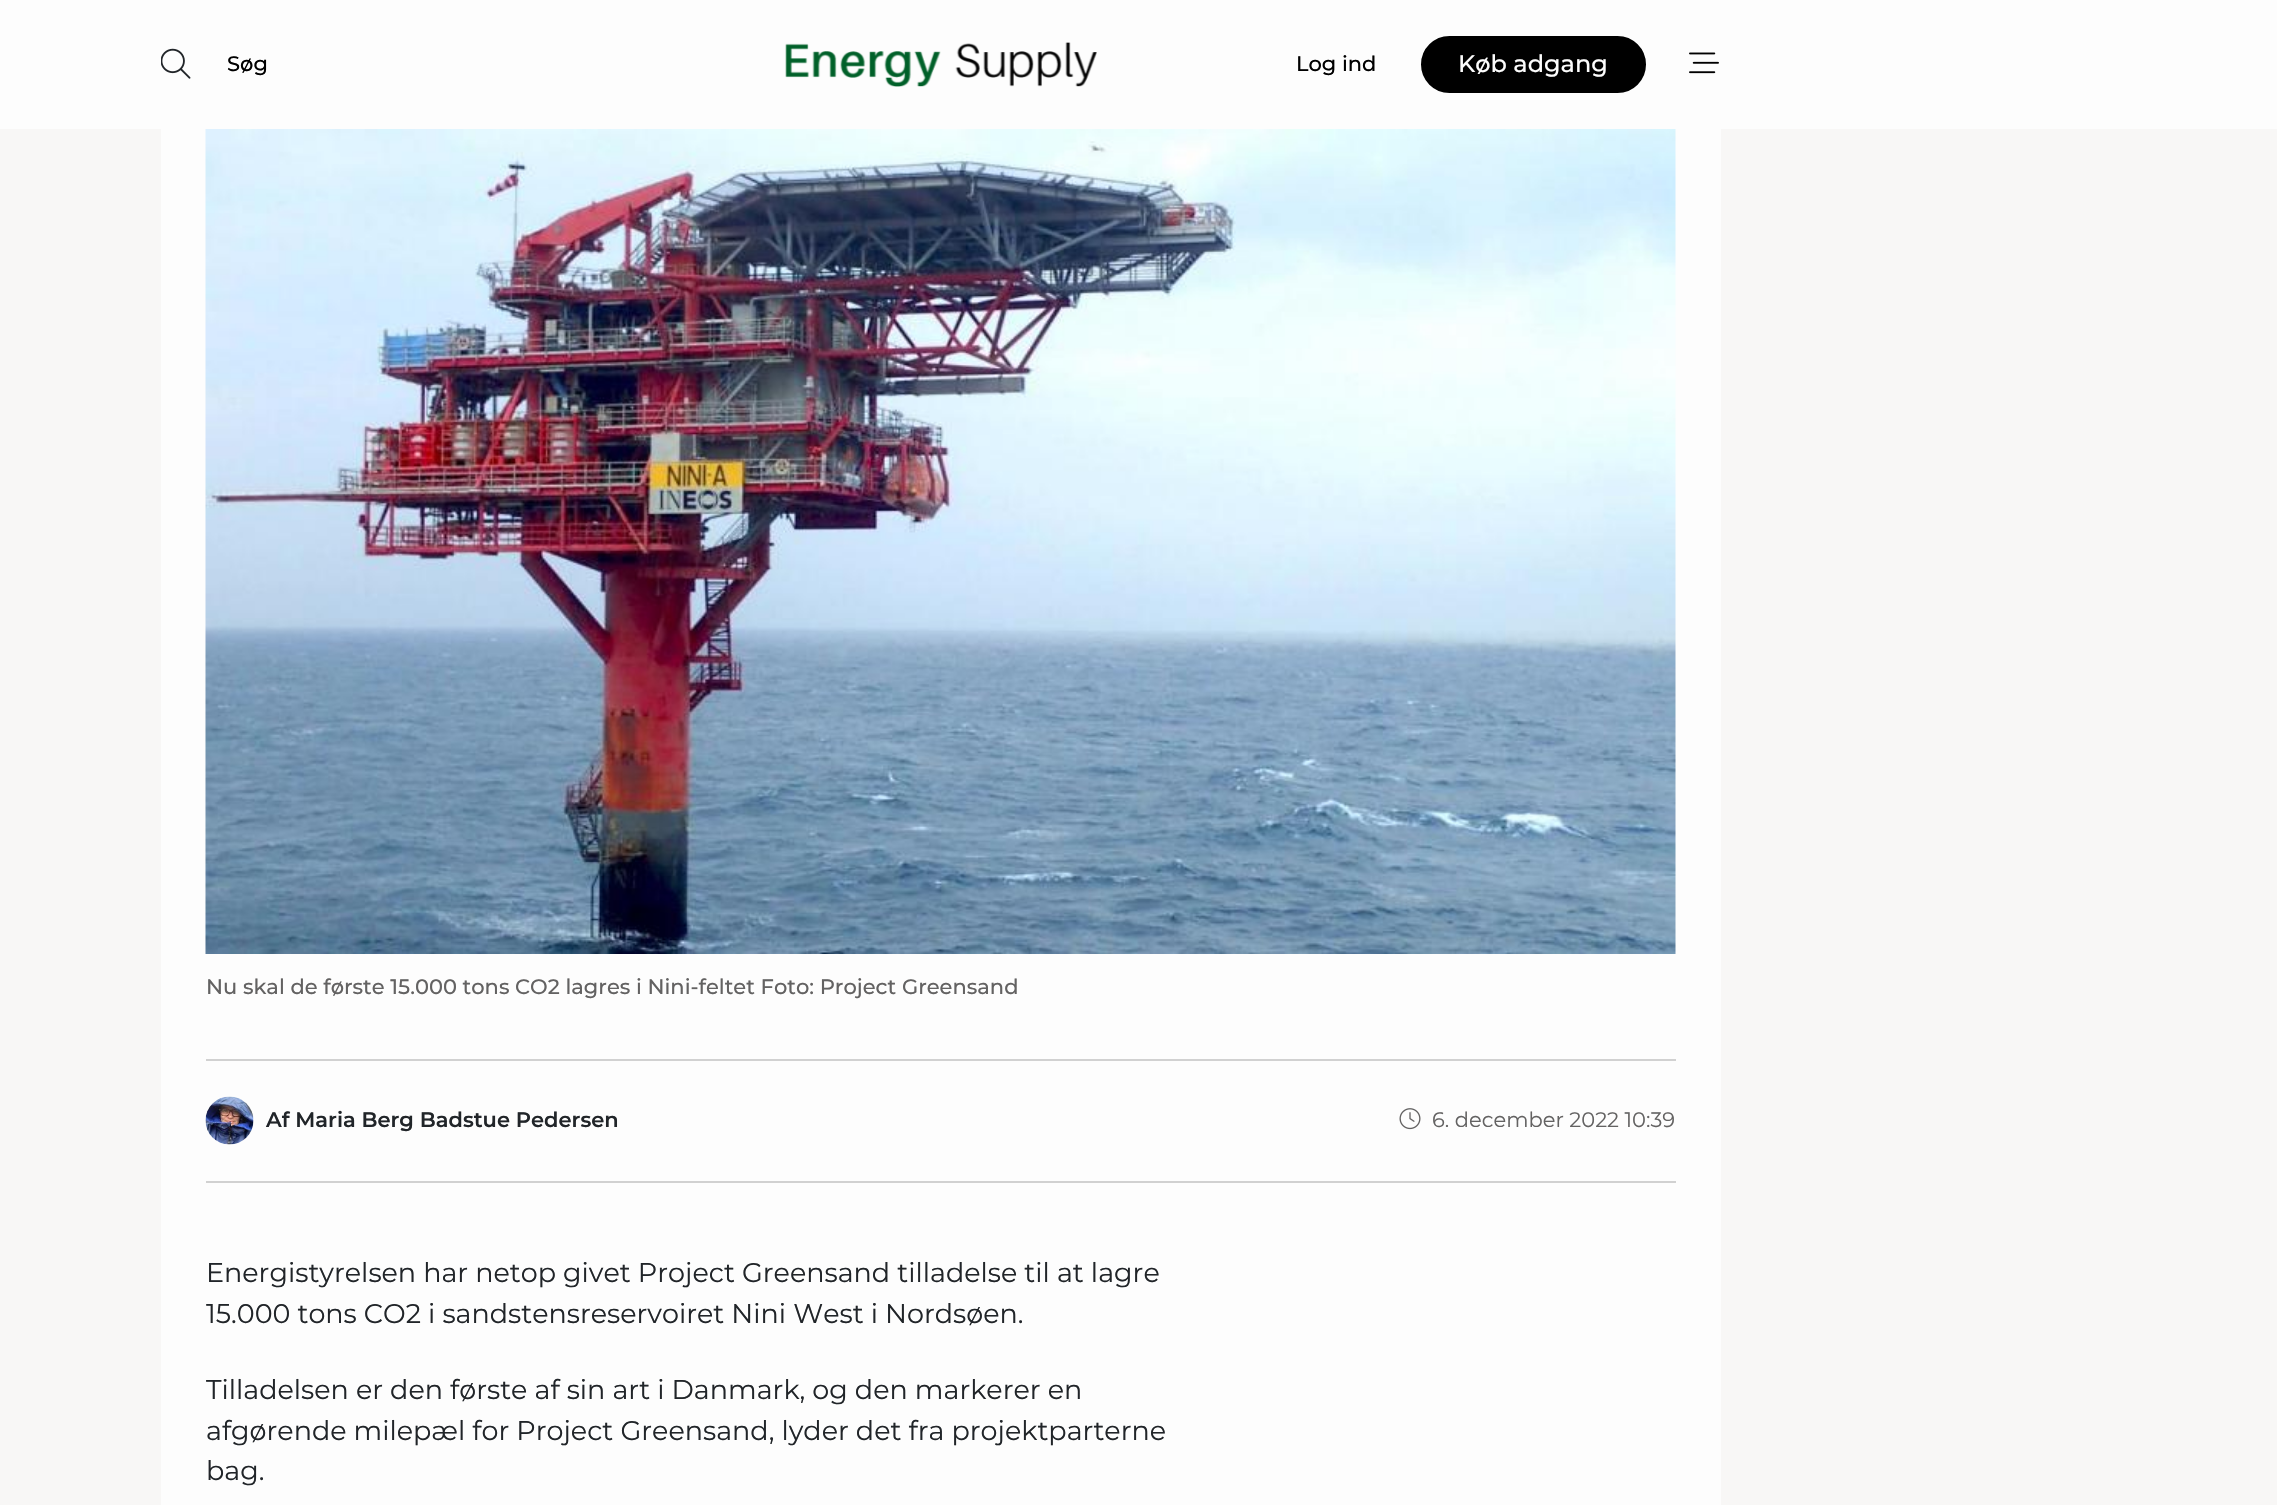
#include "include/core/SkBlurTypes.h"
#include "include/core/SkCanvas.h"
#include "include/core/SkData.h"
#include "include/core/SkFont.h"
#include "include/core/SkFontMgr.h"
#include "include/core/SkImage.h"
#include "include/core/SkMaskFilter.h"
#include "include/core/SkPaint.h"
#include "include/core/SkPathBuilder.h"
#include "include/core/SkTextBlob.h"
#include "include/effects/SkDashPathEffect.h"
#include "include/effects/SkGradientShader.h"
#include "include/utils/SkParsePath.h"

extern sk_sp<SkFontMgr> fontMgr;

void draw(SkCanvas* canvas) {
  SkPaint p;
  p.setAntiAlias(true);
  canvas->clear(SkColorSetRGB(248, 247, 246));
  p.setColor(SkColorSetRGB(253, 253, 253));
  canvas->drawRect(SkRect::MakeLTRB(0, 0, 2277, 129), p);
  canvas->drawImageRect(SkImages::DeferredFromEncodedData(SkData::MakeFromFileName("images/1.png")), SkRect::MakeLTRB(161, 48, 191, 79), SkSamplingOptions());
  canvas->drawImageRect(SkImages::DeferredFromEncodedData(SkData::MakeFromFileName("images/2.png")), SkRect::MakeLTRB(785, 42, 1097, 87), SkSamplingOptions());
  p.setColor(SK_ColorBLACK);
  canvas->drawRoundRect(SkRect::MakeLTRB(1422, 37, 1645, 92), 27.5f, 27.5f, p);
  p.setStyle(SkPaint::kStroke_Style);
  p.setStrokeWidth(2);
  canvas->drawRoundRect(SkRect::MakeLTRB(1422, 37, 1645, 92), 27.5f, 27.5f, p);
  canvas->drawImageRect(SkImages::DeferredFromEncodedData(SkData::MakeFromFileName("images/3.png")), SkRect::MakeLTRB(1689, 52, 1719, 74), SkSamplingOptions());
  p.setStyle(SkPaint::kFill_Style);
  p.setColor(SkColorSetRGB(253, 253, 253));
  canvas->drawRect(SkRect::MakeLTRB(161, 129, 1721, 1505), p);
  canvas->drawImageRect(SkImages::DeferredFromEncodedData(SkData::MakeFromFileName("images/4.png")), SkRect::MakeLTRB(205, 129, 1676, 954), SkSamplingOptions());
  p.setColor(SkColorSetRGB(209, 209, 209));
  canvas->drawRect(SkRect::MakeLTRB(206, 1059, 1676, 1061), p);
  canvas->drawRect(SkRect::MakeLTRB(206, 1181, 1676, 1183), p);
  canvas->drawImageRect(SkImages::DeferredFromEncodedData(SkData::MakeFromFileName("images/5.png")), SkRect::MakeLTRB(205, 1096, 254, 1145), SkSamplingOptions());
  canvas->drawImageRect(SkImages::DeferredFromEncodedData(SkData::MakeFromFileName("images/6.png")), SkRect::MakeLTRB(1399, 1108, 1421, 1130), SkSamplingOptions());
  SkFont font1(fontMgr->matchFamilyStyle("Montserrat", SkFontStyle(500, SkFontStyle::kNormal_Width, SkFontStyle::kUpright_Slant)), 21);
  font1.setSubpixel(true);
  p.setColor(SK_ColorBLACK);
  canvas->drawString("Søg", 227, 71, font1, p);
  canvas->drawString("Log ind", 1296, 71, font1, p);
  SkFont font2(fontMgr->matchFamilyStyle("Montserrat", SkFontStyle(500, SkFontStyle::kNormal_Width, SkFontStyle::kUpright_Slant)), 24);
  font2.setSubpixel(true);
  p.setColor(SkColorSetRGB(253, 253, 253));
  canvas->drawString("Køb adgang", 1458, 72, font2, p);
  p.setColor(SkColorSetRGB(99, 98, 98));
  canvas->drawString("Nu skal de første 15.000 tons CO2 lagres i Nini-feltet Foto: Project Greensand", 206, 994, font1, p);
  SkFont font3(fontMgr->matchFamilyStyle("Montserrat", SkFontStyle(600, SkFontStyle::kNormal_Width, SkFontStyle::kUpright_Slant)), 21);
  font3.setSubpixel(true);
  p.setColor(SkColorSetRGB(33, 37, 41));
  canvas->drawString("Af Maria Berg Badstue Pedersen", 266, 1127, font3, p);
  SkFont font4(fontMgr->matchFamilyStyle("Montserrat", SkFontStyle::Normal()), 21);
  font4.setSubpixel(true);
  p.setColor(SkColorSetRGB(99, 98, 98));
  canvas->drawString("6. december 2022 10:39", 1432, 1127, font4, p);
  SkFont font5(fontMgr->matchFamilyStyle("Montserrat", SkFontStyle::Normal()), 27);
  font5.setSubpixel(true);
  p.setColor(SkColorSetRGB(33, 37, 41));
  canvas->drawString("Energistyrelsen har netop givet Project Greensand tilladelse til at lagre", 206, 1282, font5, p);
  canvas->drawString("15.000 tons CO2 i sandstensreservoiret Nini West i Nordsøen.", 206, 1323, font5, p);
  canvas->drawString("Tilladelsen er den første af sin art i Danmark, og den markerer en", 206, 1399, font5, p);
  canvas->drawString("afgørende milepæl for Project Greensand, lyder det fra projektparterne", 206, 1440, font5, p);
  canvas->drawString("bag.", 206, 1480, font5, p);
}
